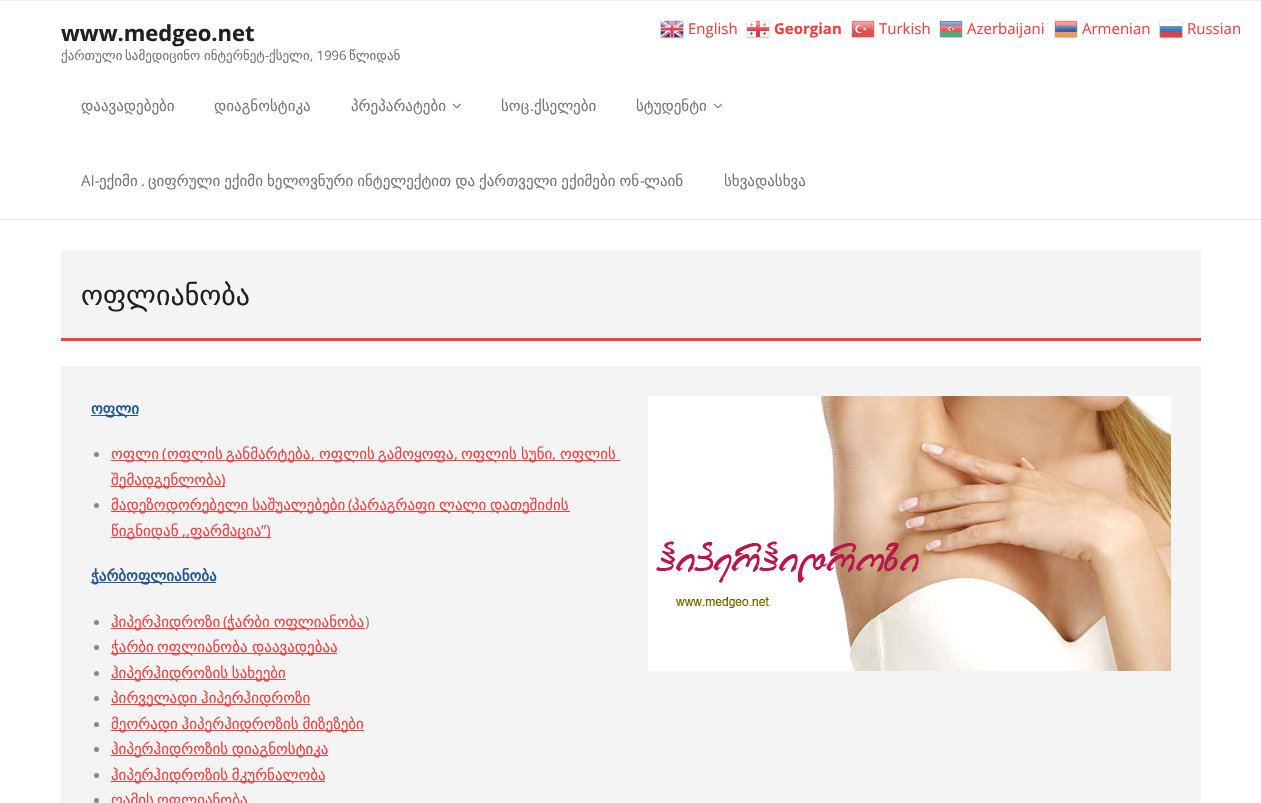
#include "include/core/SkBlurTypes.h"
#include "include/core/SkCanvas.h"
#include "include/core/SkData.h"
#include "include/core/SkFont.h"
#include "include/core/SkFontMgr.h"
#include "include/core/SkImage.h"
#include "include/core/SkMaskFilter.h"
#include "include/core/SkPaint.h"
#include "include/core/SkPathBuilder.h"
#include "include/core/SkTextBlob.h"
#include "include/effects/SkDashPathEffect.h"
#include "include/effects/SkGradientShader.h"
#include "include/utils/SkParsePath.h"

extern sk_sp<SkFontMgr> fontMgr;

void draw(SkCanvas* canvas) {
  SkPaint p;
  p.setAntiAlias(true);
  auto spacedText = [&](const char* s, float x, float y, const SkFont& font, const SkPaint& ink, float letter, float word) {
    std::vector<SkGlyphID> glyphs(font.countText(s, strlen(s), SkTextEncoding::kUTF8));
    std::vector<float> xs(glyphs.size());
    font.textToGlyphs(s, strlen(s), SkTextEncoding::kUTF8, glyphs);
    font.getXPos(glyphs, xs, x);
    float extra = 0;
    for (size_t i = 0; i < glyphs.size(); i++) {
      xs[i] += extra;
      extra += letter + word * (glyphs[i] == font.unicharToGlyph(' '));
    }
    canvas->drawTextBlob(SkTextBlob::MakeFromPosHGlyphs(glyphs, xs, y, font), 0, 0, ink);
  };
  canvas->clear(SK_ColorWHITE);
  p.setColor(SkColorSetRGB(238, 238, 238));
  canvas->drawRect(SkRect::MakeLTRB(0, 0, 1261, 1), p);
  p.setColor(SkColorSetRGB(224, 224, 224));
  canvas->drawRect(SkRect::MakeLTRB(0, 219, 1261, 220), p);
  canvas->drawImageRect(SkImages::DeferredFromEncodedData(SkData::MakeFromFileName("images/1.png")), SkRect::MakeLTRB(452, 103, 461, 109), SkSamplingOptions());
  canvas->drawImageRect(SkImages::DeferredFromEncodedData(SkData::MakeFromFileName("images/1.png")), SkRect::MakeLTRB(713, 103, 722, 109), SkSamplingOptions());
  p.setColor(SkColorSetRGB(244, 244, 244));
  canvas->drawRect(SkRect::MakeLTRB(61, 250, 1201, 338), p);
  p.setColor(SkColorSetRGB(243, 63, 63));
  canvas->drawRect(SkRect::MakeLTRB(61, 338, 1201, 341), p);
  p.setColor(SkColorSetRGB(244, 244, 244));
  canvas->drawRect(SkRect::MakeLTRB(61, 366, 1201, 803), p);
  p.setColor(SkColorSetRGB(36, 88, 150));
  canvas->drawRect(SkRect::MakeLTRB(91, 415, 138, 416), p);
  canvas->drawImageRect(SkImages::DeferredFromEncodedData(SkData::MakeFromFileName("images/2.png")), SkRect::MakeLTRB(648, 396, 1171, 671), SkSamplingOptions());
  p.setColor(SkColorSetRGB(136, 136, 136));
  canvas->drawCircle(96.5f, 454.5f, 2.5f, p);
  p.setColor(SkColorSetRGB(243, 63, 63));
  canvas->drawRect(SkRect::MakeLTRB(111, 460, 620, 461), p);
  canvas->drawRect(SkRect::MakeLTRB(111, 486, 225, 487), p);
  p.setColor(SkColorSetRGB(136, 136, 136));
  canvas->drawCircle(96.5f, 505.5f, 2.5f, p);
  p.setColor(SkColorSetRGB(243, 63, 63));
  canvas->drawRect(SkRect::MakeLTRB(111, 511, 570, 512), p);
  canvas->drawRect(SkRect::MakeLTRB(111, 537, 271, 538), p);
  p.setColor(SkColorSetRGB(36, 88, 150));
  canvas->drawRect(SkRect::MakeLTRB(91, 582, 216, 583), p);
  p.setColor(SkColorSetRGB(136, 136, 136));
  canvas->drawCircle(96.5f, 622.5f, 2.5f, p);
  p.setColor(SkColorSetRGB(243, 63, 63));
  canvas->drawRect(SkRect::MakeLTRB(111, 628, 365, 629), p);
  p.setColor(SkColorSetRGB(136, 136, 136));
  canvas->drawCircle(96.5f, 647.5f, 2.5f, p);
  p.setColor(SkColorSetRGB(243, 63, 63));
  canvas->drawRect(SkRect::MakeLTRB(111, 653, 337, 654), p);
  p.setColor(SkColorSetRGB(136, 136, 136));
  canvas->drawCircle(96.5f, 673.5f, 2.5f, p);
  p.setColor(SkColorSetRGB(243, 63, 63));
  canvas->drawRect(SkRect::MakeLTRB(111, 679, 286, 680), p);
  p.setColor(SkColorSetRGB(136, 136, 136));
  canvas->drawCircle(96.5f, 698.5f, 2.5f, p);
  p.setColor(SkColorSetRGB(243, 63, 63));
  canvas->drawRect(SkRect::MakeLTRB(111, 704, 310, 705), p);
  p.setColor(SkColorSetRGB(136, 136, 136));
  canvas->drawCircle(96.5f, 724.5f, 2.5f, p);
  p.setColor(SkColorSetRGB(243, 63, 63));
  canvas->drawRect(SkRect::MakeLTRB(111, 730, 364, 731), p);
  p.setColor(SkColorSetRGB(136, 136, 136));
  canvas->drawCircle(96.5f, 749.5f, 2.5f, p);
  p.setColor(SkColorSetRGB(243, 63, 63));
  canvas->drawRect(SkRect::MakeLTRB(111, 755, 328, 756), p);
  p.setColor(SkColorSetRGB(136, 136, 136));
  canvas->drawCircle(96.5f, 775.5f, 2.5f, p);
  p.setColor(SkColorSetRGB(243, 63, 63));
  canvas->drawRect(SkRect::MakeLTRB(111, 781, 325, 782), p);
  p.setColor(SkColorSetRGB(136, 136, 136));
  canvas->drawCircle(96.5f, 800.5f, 2.5f, p);
  canvas->drawImageRect(SkImages::DeferredFromEncodedData(SkData::MakeFromFileName("images/3.png")), SkRect::MakeLTRB(660, 20, 684, 39), SkSamplingOptions());
  canvas->drawImageRect(SkImages::DeferredFromEncodedData(SkData::MakeFromFileName("images/4.png")), SkRect::MakeLTRB(746, 20, 770, 39), SkSamplingOptions());
  canvas->drawImageRect(SkImages::DeferredFromEncodedData(SkData::MakeFromFileName("images/5.png")), SkRect::MakeLTRB(851, 20, 875, 39), SkSamplingOptions());
  canvas->drawImageRect(SkImages::DeferredFromEncodedData(SkData::MakeFromFileName("images/6.png")), SkRect::MakeLTRB(939, 20, 963, 39), SkSamplingOptions());
  canvas->drawImageRect(SkImages::DeferredFromEncodedData(SkData::MakeFromFileName("images/7.png")), SkRect::MakeLTRB(1054, 20, 1078, 39), SkSamplingOptions());
  canvas->drawImageRect(SkImages::DeferredFromEncodedData(SkData::MakeFromFileName("images/8.png")), SkRect::MakeLTRB(1159, 20, 1183, 39), SkSamplingOptions());
  SkFont font1(fontMgr->matchFamilyStyle("Open Sans", SkFontStyle::Bold()), 22);
  font1.setSubpixel(true);
  p.setColor(SkColorSetRGB(32, 32, 32));
  canvas->drawString("www.medgeo.net", 61, 41, font1, p);
  SkFont font2(fontMgr->matchFamilyStyle("DejaVu Sans", SkFontStyle::Normal()), 13);
  font2.setSubpixel(true);
  p.setColor(SkColorSetRGB(119, 119, 119));
  canvas->drawString("ქართული", 61, 60, font2, p);
  canvas->drawString("სამედიცინო", 125, 60, font2, p);
  canvas->drawString("ინტერნეტ ქსელი", 204, 60, font2, p);
  SkFont font3(fontMgr->matchFamilyStyle("Open Sans", SkFontStyle::Normal()), 13);
  font3.setSubpixel(true);
  canvas->drawString(", 1996", 310, 60, font3, p);
  canvas->drawString("წლიდან", 349, 60, font2, p);
  canvas->drawString("-", 265, 60, font3, p);
  SkFont font4(fontMgr->matchFamilyStyle("DejaVu Sans", SkFontStyle::Normal()), 15);
  font4.setSubpixel(true);
  canvas->drawString("დაავადებები", 81, 111, font4, p);
  canvas->drawString("დიაგნოსტიკა", 214, 111, font4, p);
  canvas->drawString("პრეპარატები", 351, 111, font4, p);
  canvas->drawString("სოც", 501, 111, font4, p);
  SkFont font5(fontMgr->matchFamilyStyle("Open Sans", SkFontStyle::Normal()), 15);
  font5.setSubpixel(true);
  canvas->drawString(".", 530, 111, font5, p);
  canvas->drawString("ქსელები", 534, 111, font4, p);
  canvas->drawString("სტუდენტი", 636, 111, font4, p);
  canvas->drawString("AI-", 81, 186, font5, p);
  canvas->drawString("ექიმი", 99, 186, font4, p);
  spacedText("ციფრული ექიმი ხელოვნური ინტელექტით და ქართველი ექიმები ონ", 148, 186, font4, p, 0, -0.75f);
  canvas->drawString("-", 640, 186, font5, p);
  canvas->drawString("ლაინ", 644, 186, font4, p);
  canvas->drawString(".", 141, 186, font5, p);
  canvas->drawString("სხვადასხვა", 724, 186, font4, p);
  SkFont font6(fontMgr->matchFamilyStyle("DejaVu Sans", SkFontStyle::Normal()), 28);
  font6.setSubpixel(true);
  p.setColor(SkColorSetRGB(32, 32, 32));
  canvas->drawString("ოფლიანობა", 81, 305, font6, p);
  SkFont font7(fontMgr->matchFamilyStyle("DejaVu Sans", SkFontStyle::Bold()), 15);
  font7.setSubpixel(true);
  p.setColor(SkColorSetRGB(36, 88, 150));
  canvas->drawString("ოფლი", 91, 414, font7, p);
  p.setColor(SkColorSetRGB(243, 63, 63));
  canvas->drawString("ოფლი", 111, 459, font4, p);
  canvas->drawString("(", 162, 459, font5, p);
  canvas->drawString("ოფლის", 167, 459, font4, p);
  canvas->drawString("განმარტება", 226, 459, font4, p);
  canvas->drawString("ოფლის", 319, 459, font4, p);
  canvas->drawString("გამოყოფა", 378, 459, font4, p);
  canvas->drawString("ოფლის", 461, 459, font4, p);
  canvas->drawString("სუნი", 521, 459, font4, p);
  canvas->drawString("ოფლის", 560, 459, font4, p);
  canvas->drawString(",", 311, 459, font5, p);
  canvas->drawString(",", 454, 459, font5, p);
  canvas->drawString(",", 552, 459, font5, p);
  canvas->drawString("შემადგენლობა", 111, 485, font4, p);
  canvas->drawString(")", 221, 485, font5, p);
  spacedText("მადეზოდორებელი საშუალებები", 111, 510, font4, p, 0, -1);
  canvas->drawString("(", 348, 510, font5, p);
  spacedText("პარაგრაფი ლალი დათეშიძის", 352, 510, font4, p, 0, -1);
  canvas->drawString("წიგნიდან", 111, 536, font4, p);
  canvas->drawString(",,", 182, 536, font5, p);
  canvas->drawString("ფარმაცია", 190, 536, font4, p);
  canvas->drawString("”)", 261, 536, font5, p);
  p.setColor(SkColorSetRGB(36, 88, 150));
  canvas->drawString("ჭარბოფლიანობა", 91, 581, font7, p);
  p.setColor(SkColorSetRGB(243, 63, 63));
  canvas->drawString("ჰიპერჰიდროზი", 111, 627, font4, p);
  canvas->drawString("(", 223, 627, font5, p);
  spacedText("ჭარბი ოფლიანობა", 227, 627, font4, p, 0, -1);
  p.setColor(SkColorSetRGB(136, 136, 136));
  canvas->drawString(")", 365, 627, font5, p);
  p.setColor(SkColorSetRGB(243, 63, 63));
  canvas->drawString("ჭარბი", 111, 652, font4, p);
  canvas->drawString("ოფლიანობა", 157, 652, font4, p);
  canvas->drawString("დაავადებაა", 252, 652, font4, p);
  spacedText("ჰიპერჰიდროზის სახეები", 111, 678, font4, p, 0, -1);
  spacedText("პირველადი ჰიპერჰიდროზი", 111, 703, font4, p, 0, -1);
  spacedText("მეორადი ჰიპერჰიდროზის მიზეზები", 111, 729, font4, p, 0, -1);
  spacedText("ჰიპერჰიდროზის დიაგნოსტიკა", 111, 754, font4, p, 0, -1);
  spacedText("ჰიპერჰიდროზის მკურნალობა", 111, 780, font4, p, 0, -1);
  canvas->drawString("ღამის", 111, 805, font4, p);
  canvas->drawString("ოფლიანობა", 157, 805, font4, p);
  canvas->drawString("English", 688, 34, font5, p);
  SkFont font8(fontMgr->matchFamilyStyle("Open Sans", SkFontStyle::Bold()), 15);
  font8.setSubpixel(true);
  canvas->drawString("Georgian", 774, 34, font8, p);
  canvas->drawString("Turkish", 879, 34, font5, p);
  canvas->drawString("Azerbaijani", 967, 34, font5, p);
  canvas->drawString("Armenian", 1082, 34, font5, p);
  canvas->drawString("Russian", 1187, 34, font5, p);
}
